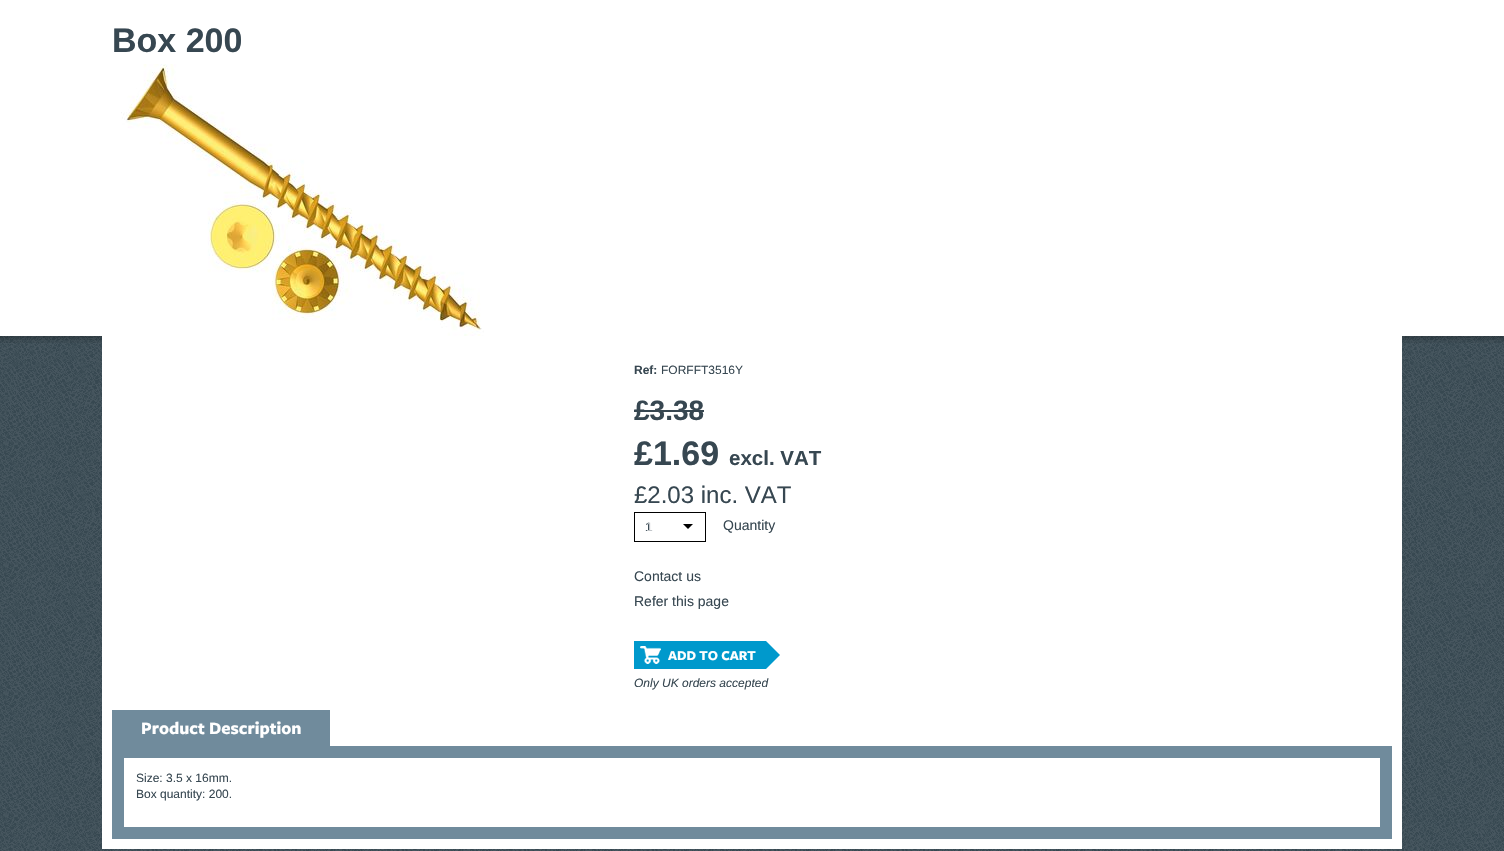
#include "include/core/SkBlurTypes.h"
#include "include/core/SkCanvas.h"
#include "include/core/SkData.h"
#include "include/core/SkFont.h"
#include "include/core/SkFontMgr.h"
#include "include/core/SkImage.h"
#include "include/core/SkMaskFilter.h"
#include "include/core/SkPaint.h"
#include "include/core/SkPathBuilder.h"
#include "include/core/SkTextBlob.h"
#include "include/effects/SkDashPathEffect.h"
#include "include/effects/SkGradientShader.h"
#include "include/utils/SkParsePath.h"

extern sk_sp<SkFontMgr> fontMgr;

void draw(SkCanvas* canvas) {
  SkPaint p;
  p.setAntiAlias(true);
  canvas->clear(SK_ColorWHITE);
  canvas->drawImageRect(SkImages::DeferredFromEncodedData(SkData::MakeFromFileName("images/1.png")), SkRect::MakeLTRB(0, 336, 1504, 851), SkSamplingOptions());
  p.setColor(SK_ColorWHITE);
  canvas->drawRect(SkRect::MakeLTRB(102, 336, 1402, 849), p);
  canvas->drawImageRect(SkImages::DeferredFromEncodedData(SkData::MakeFromFileName("images/2.png")), SkRect::MakeLTRB(121, 64, 484, 336), SkSamplingOptions());
  p.setColor(SkColorSetRGB(55, 71, 81));
  canvas->drawRect(SkRect::MakeLTRB(634, 410, 704, 412), p);
  p.setStyle(SkPaint::kStroke_Style);
  p.setStrokeWidth(1);
  p.setColor(SK_ColorBLACK);
  canvas->drawRect(SkRect::MakeLTRB(634.5f, 512.5f, 705.5f, 541.5f), p);
  p.setStyle(SkPaint::kFill_Style);
  canvas->drawPath(SkPathBuilder().moveTo(683, 524).lineTo(693, 524).lineTo(688, 529).close().detach(), p);
  p.setColor(SkColorSetRGB(0, 153, 204));
  canvas->drawRect(SkRect::MakeLTRB(634, 641, 766, 669), p);
  canvas->drawImageRect(SkImages::DeferredFromEncodedData(SkData::MakeFromFileName("images/3.png")), SkRect::MakeLTRB(640, 646, 661, 664), SkSamplingOptions());
  canvas->drawPath(SkPathBuilder().moveTo(766, 669).lineTo(766, 641).lineTo(780, 655).close().detach(), p);
  p.setColor(SkColorSetRGB(112, 139, 156));
  canvas->drawRect(SkRect::MakeLTRB(112, 710, 330, 746), p);
  canvas->drawRect(SkRect::MakeLTRB(112, 746, 1392, 839), p);
  p.setColor(SK_ColorWHITE);
  canvas->drawRect(SkRect::MakeLTRB(124, 758, 1380, 827), p);
  SkFont font1(fontMgr->matchFamilyStyle("Liberation Sans", SkFontStyle::Bold()), 34);
  font1.setSubpixel(true);
  p.setColor(SkColorSetRGB(55, 71, 81));
  canvas->drawString("Box 200", 112, 52, font1, p);
  SkFont font2(fontMgr->matchFamilyStyle("Liberation Sans", SkFontStyle::Bold()), 12);
  font2.setSubpixel(true);
  canvas->drawString("Ref:", 634, 374, font2, p);
  SkFont font3(fontMgr->matchFamilyStyle("Liberation Sans", SkFontStyle::Normal()), 12);
  font3.setSubpixel(true);
  canvas->drawString("FORFFT3516Y", 661, 374, font3, p);
  SkFont font4(fontMgr->matchFamilyStyle("Liberation Sans", SkFontStyle::Bold()), 28);
  font4.setSubpixel(true);
  canvas->drawString("£3.38", 634, 420, font4, p);
  canvas->drawString("£1.69", 634, 465, font1, p);
  SkFont font5(fontMgr->matchFamilyStyle("Liberation Sans", SkFontStyle::Bold()), 20.5f);
  font5.setSubpixel(true);
  canvas->drawString("excl. VAT", 729, 465, font5, p);
  SkFont font6(fontMgr->matchFamilyStyle("Liberation Sans", SkFontStyle::Normal()), 24);
  font6.setSubpixel(true);
  canvas->drawString("£2.03 inc. VAT", 634, 503, font6, p);
  canvas->drawString("1", 645, 531, font3, p);
  p.setColor(SkColorSetRGB(194, 198, 202));
  canvas->drawString("1", 646, 531, font3, p);
  SkFont font7(fontMgr->matchFamilyStyle("Liberation Sans", SkFontStyle::Normal()), 14);
  font7.setSubpixel(true);
  p.setColor(SkColorSetRGB(55, 71, 81));
  canvas->drawString("Quantity", 723, 530, font7, p);
  canvas->drawString("Contact us", 634, 581, font7, p);
  canvas->drawString("Refer this page", 634, 606, font7, p);
  SkFont font8(fontMgr->matchFamilyStyle("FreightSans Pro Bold", SkFontStyle::Bold()), 14);
  font8.setSubpixel(true);
  p.setColor(SK_ColorWHITE);
  canvas->drawString("ADD TO CART", 668, 660, font8, p);
  SkFont font9(fontMgr->matchFamilyStyle("Liberation Sans", SkFontStyle::Italic()), 12);
  font9.setSubpixel(true);
  p.setColor(SkColorSetRGB(55, 71, 81));
  canvas->drawString("Only UK orders accepted", 634, 687, font9, p);
  SkFont font10(fontMgr->matchFamilyStyle("FreightSans Pro Bold", SkFontStyle::Bold()), 18);
  font10.setSubpixel(true);
  p.setColor(SK_ColorWHITE);
  canvas->drawString("Product Description", 141, 734, font10, p);
  p.setColor(SkColorSetRGB(55, 71, 81));
  canvas->drawString("Size: 3.5 x 16mm.", 136, 782, font3, p);
  canvas->drawString("Box quantity: 200.", 136, 798, font3, p);
}
